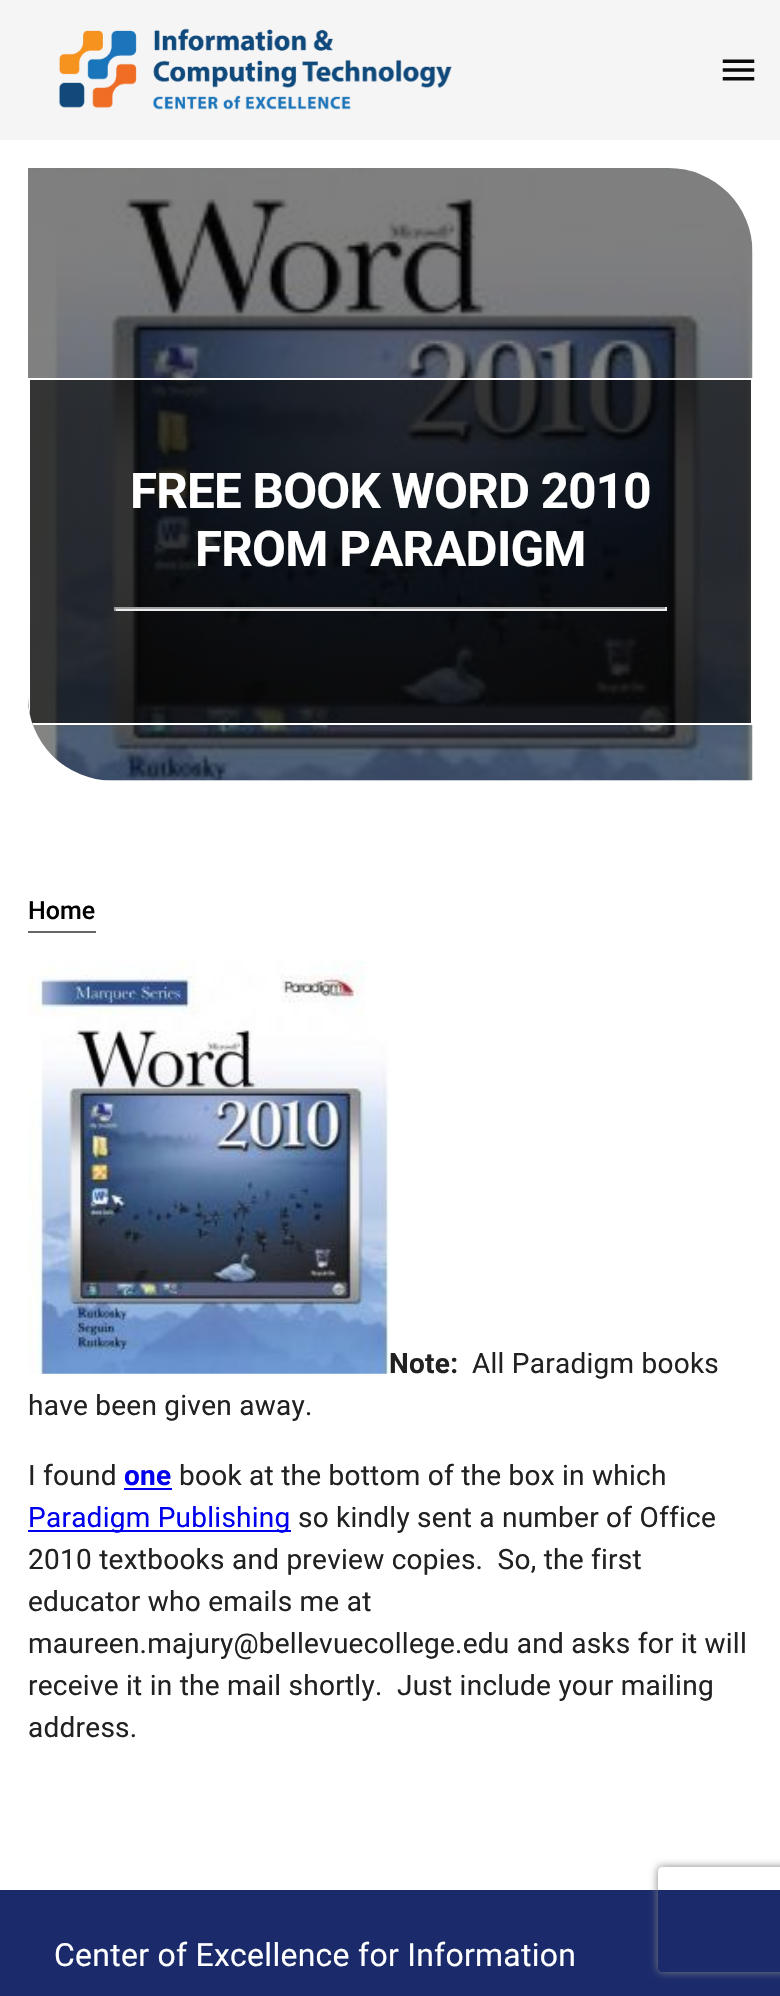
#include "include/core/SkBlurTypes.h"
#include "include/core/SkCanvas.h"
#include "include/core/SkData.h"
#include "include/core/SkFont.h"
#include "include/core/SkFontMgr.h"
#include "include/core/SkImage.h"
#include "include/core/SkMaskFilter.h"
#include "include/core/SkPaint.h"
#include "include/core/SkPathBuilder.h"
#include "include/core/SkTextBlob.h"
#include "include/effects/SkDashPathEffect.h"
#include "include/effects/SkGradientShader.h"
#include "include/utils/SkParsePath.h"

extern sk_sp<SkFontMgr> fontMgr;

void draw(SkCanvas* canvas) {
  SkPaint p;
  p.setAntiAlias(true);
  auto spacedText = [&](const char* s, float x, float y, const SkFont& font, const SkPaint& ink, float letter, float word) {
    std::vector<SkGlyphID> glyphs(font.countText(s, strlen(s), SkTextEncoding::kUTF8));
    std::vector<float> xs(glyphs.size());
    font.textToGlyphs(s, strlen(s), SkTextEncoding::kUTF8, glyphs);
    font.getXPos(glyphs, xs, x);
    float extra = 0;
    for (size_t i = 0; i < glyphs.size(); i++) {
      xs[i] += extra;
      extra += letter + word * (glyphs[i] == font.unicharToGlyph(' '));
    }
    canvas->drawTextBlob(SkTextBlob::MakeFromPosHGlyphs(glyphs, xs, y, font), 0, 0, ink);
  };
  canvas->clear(SK_ColorWHITE);
  p.setColor(SkColorSetRGB(245, 245, 245));
  canvas->drawRect(SkRect::MakeLTRB(0, 0, 780, 140), p);
  canvas->drawImageRect(SkImages::DeferredFromEncodedData(SkData::MakeFromFileName("images/1.png")), SkRect::MakeLTRB(59, 28, 452, 110), SkSamplingOptions());
  canvas->drawImageRect(SkImages::DeferredFromEncodedData(SkData::MakeFromFileName("images/2.png")), SkRect::MakeLTRB(722, 59, 755, 81), SkSamplingOptions());
  canvas->drawImageRect(SkImages::DeferredFromEncodedData(SkData::MakeFromFileName("images/3.png")), SkRect::MakeLTRB(28, 168, 753, 781), SkSamplingOptions());
  canvas->save();
  canvas->clipPath(SkPathBuilder().moveTo(28, 168).lineTo(669, 168).cubicTo(715.5f, 168, 753, 205.5f, 753, 252).lineTo(753, 781).lineTo(112, 781).cubicTo(65.5f, 781, 28, 743.5f, 28, 697).close().detach(), true);
  p.setColor(SkColorSetARGB(153, 0, 0, 0));
  canvas->drawRect(SkRect::MakeLTRB(28, 380, 751, 725), p);
  canvas->restore();
  p.setColor(SK_ColorWHITE);
  canvas->drawPath(SkPathBuilder().moveTo(30, 380).lineTo(751, 380).lineTo(751, 723).lineTo(32, 723).lineTo(33, 725).lineTo(753, 725).lineTo(753, 378).lineTo(28, 378).lineTo(28, 697).cubicTo(28, 703, 29, 709, 30, 715).close().detach(), p);
  p.setColor(SkColorSetRGB(159, 159, 159));
  canvas->drawRect(SkRect::MakeLTRB(114, 607, 667, 609), p);
  p.setColor(SkColorSetRGB(238, 238, 238));
  canvas->drawRect(SkRect::MakeLTRB(665, 607, 667, 611), p);
  canvas->drawRect(SkRect::MakeLTRB(114, 609, 667, 611), p);
  p.setColor(SkColorSetRGB(159, 159, 159));
  canvas->drawRect(SkRect::MakeLTRB(114, 607, 116, 611), p);
  p.setColor(SkColorSetRGB(102, 102, 102));
  canvas->drawRect(SkRect::MakeLTRB(28, 931, 96, 933), p);
  canvas->drawImageRect(SkImages::DeferredFromEncodedData(SkData::MakeFromFileName("images/4.png")), SkRect::MakeLTRB(28, 961, 389, 1374), SkSamplingOptions());
  p.setColor(SkColorSetRGB(0, 0, 238));
  canvas->drawRect(SkRect::MakeLTRB(124, 1488, 172, 1490), p);
  canvas->drawRect(SkRect::MakeLTRB(28, 1530, 291, 1532), p);
  p.setColor(SkColorSetRGB(26, 42, 107));
  canvas->drawRect(SkRect::MakeLTRB(0, 1890, 780, 1996), p);
  canvas->save();
  canvas->clipPath(SkPathBuilder(SkPathFillType::kEvenOdd).moveTo(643, 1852).lineTo(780, 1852).lineTo(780, 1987).lineTo(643, 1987).close().moveTo(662, 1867).lineTo(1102, 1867).cubicTo(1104, 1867, 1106, 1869, 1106, 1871).lineTo(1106, 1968).cubicTo(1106, 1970, 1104, 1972, 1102, 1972).lineTo(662, 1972).cubicTo(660, 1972, 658, 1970, 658, 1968).lineTo(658, 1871).cubicTo(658, 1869, 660, 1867, 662, 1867).close().detach(), true);
  p.setColor(SkColorSetRGB(128, 128, 128));
  p.setMaskFilter(SkMaskFilter::MakeBlur(kNormal_SkBlurStyle, 4.5f));
  canvas->drawRoundRect(SkRect::MakeLTRB(658, 1867, 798, 1972), 4, 4, p);
  p.setMaskFilter(nullptr);
  canvas->restore();
  SkFont font1(fontMgr->matchFamilyStyle("Roboto", SkFontStyle::Bold()), 49.25f);
  font1.setSubpixel(true);
  p.setColor(SK_ColorWHITE);
  spacedText("FREE BOOK WORD 2010", 130, 508, font1, p, -0.75f, 0);
  spacedText("FROM PARADIGM", 195, 566, font1, p, -0.75f, 0);
  SkFont font2(fontMgr->matchFamilyStyle("Roboto", SkFontStyle(500, SkFontStyle::kNormal_Width, SkFontStyle::kUpright_Slant)), 25);
  font2.setSubpixel(true);
  p.setColor(SK_ColorBLACK);
  canvas->drawString("Home", 28, 919, font2, p);
  SkFont font3(fontMgr->matchFamilyStyle("Roboto", SkFontStyle::Bold()), 28);
  font3.setSubpixel(true);
  p.setColor(SkColorSetRGB(33, 33, 33));
  spacedText("Note:", 389, 1373, font3, p, 0.25f, 0);
  SkFont font4(fontMgr->matchFamilyStyle("Roboto", SkFontStyle::Normal()), 28);
  font4.setSubpixel(true);
  spacedText("All Paradigm books", 472, 1373, font4, p, 0.25f, 0);
  spacedText("have been given away.", 28, 1415, font4, p, 0.25f, 0);
  spacedText("I found", 28, 1485, font4, p, 0.25f, 0);
  p.setColor(SkColorSetRGB(0, 0, 238));
  spacedText("one", 124, 1485, font3, p, 0.25f, 0);
  p.setColor(SkColorSetRGB(33, 33, 33));
  spacedText("book at the bottom of the box in which", 179, 1485, font4, p, 0.25f, 0);
  p.setColor(SkColorSetRGB(0, 0, 238));
  spacedText("Paradigm Publishing", 28, 1527, font4, p, 0.25f, 0);
  p.setColor(SkColorSetRGB(33, 33, 33));
  spacedText("so kindly sent a number of Office", 298, 1527, font4, p, 0.25f, 0);
  spacedText("2010 textbooks and preview copies.  So, the first", 28, 1569, font4, p, 0.25f, 0);
  spacedText("educator who emails me at", 28, 1611, font4, p, 0.25f, 0);
  spacedText("maureen.majury@bellevuecollege.edu and asks for it will", 28, 1653, font4, p, 0.25f, 0);
  spacedText("receive it in the mail shortly.  Just include your mailing", 28, 1695, font4, p, 0.25f, 0);
  spacedText("address.", 28, 1737, font4, p, 0.25f, 0);
  SkFont font5(fontMgr->matchFamilyStyle("Roboto", SkFontStyle::Normal()), 31.9f);
  font5.setSubpixel(true);
  p.setColor(SK_ColorWHITE);
  spacedText("Center of Excellence for Information", 54, 1966, font5, p, 0.3f, 0);
}
